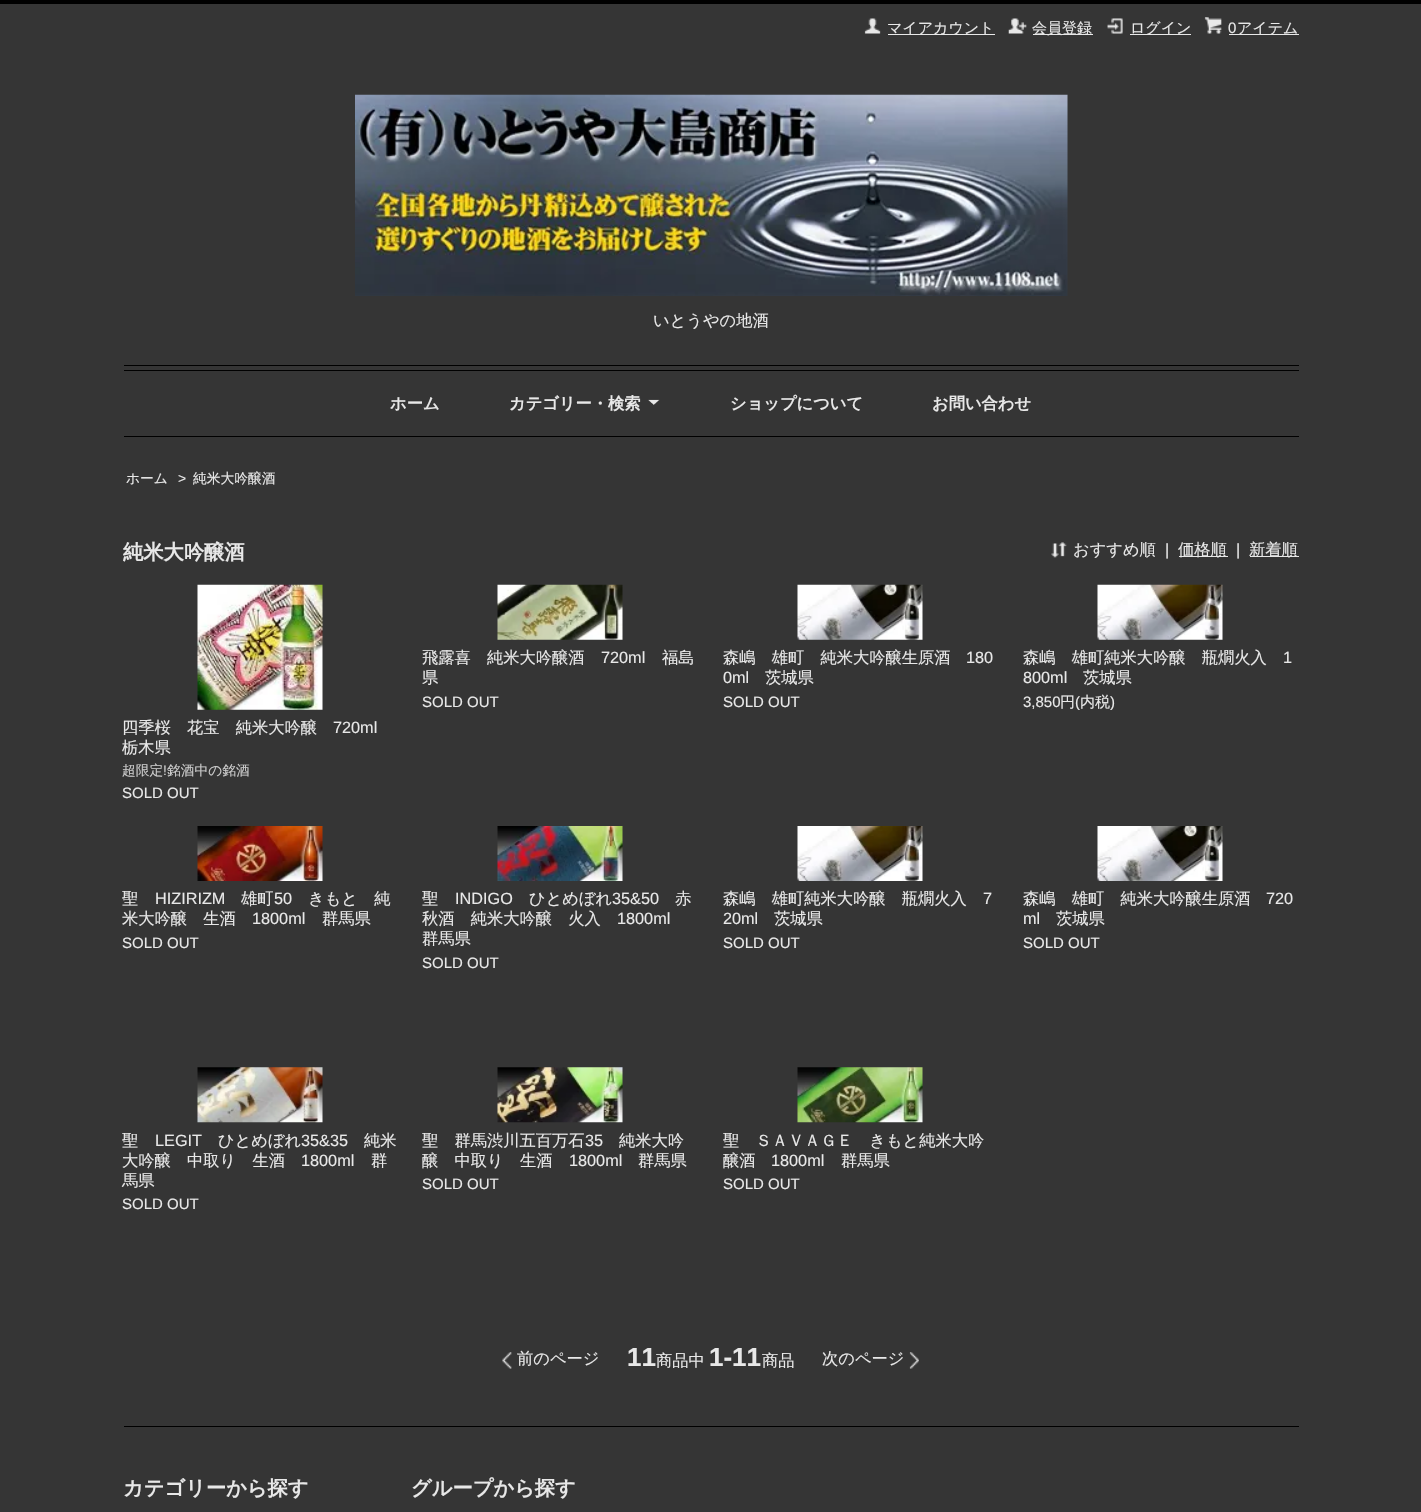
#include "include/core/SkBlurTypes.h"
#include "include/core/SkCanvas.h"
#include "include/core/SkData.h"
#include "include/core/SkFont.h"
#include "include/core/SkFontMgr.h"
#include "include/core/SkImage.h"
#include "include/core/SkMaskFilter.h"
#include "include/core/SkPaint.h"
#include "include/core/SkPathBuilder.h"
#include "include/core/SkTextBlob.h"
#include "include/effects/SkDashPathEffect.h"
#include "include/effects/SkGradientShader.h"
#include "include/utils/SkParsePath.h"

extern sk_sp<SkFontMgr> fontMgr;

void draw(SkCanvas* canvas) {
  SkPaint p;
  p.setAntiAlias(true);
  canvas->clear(SkColorSetRGB(53, 53, 53));
  p.setColor(SK_ColorBLACK);
  canvas->drawRect(SkRect::MakeLTRB(0, 0, 1421, 4), p);
  canvas->drawImageRect(SkImages::DeferredFromEncodedData(SkData::MakeFromFileName("images/1.png")), SkRect::MakeLTRB(864, 18, 881, 34), SkSamplingOptions());
  p.setColor(SkColorSetRGB(232, 232, 232));
  canvas->drawRect(SkRect::MakeLTRB(888, 34, 995, 35), p);
  canvas->drawImageRect(SkImages::DeferredFromEncodedData(SkData::MakeFromFileName("images/2.png")), SkRect::MakeLTRB(1008, 18, 1027, 34), SkSamplingOptions());
  canvas->drawRect(SkRect::MakeLTRB(1033, 34, 1093, 35), p);
  canvas->drawImageRect(SkImages::DeferredFromEncodedData(SkData::MakeFromFileName("images/3.png")), SkRect::MakeLTRB(1107, 18, 1123, 34), SkSamplingOptions());
  canvas->drawRect(SkRect::MakeLTRB(1130, 34, 1191, 35), p);
  canvas->drawImageRect(SkImages::DeferredFromEncodedData(SkData::MakeFromFileName("images/4.png")), SkRect::MakeLTRB(1204, 17, 1222, 34), SkSamplingOptions());
  canvas->drawRect(SkRect::MakeLTRB(1229, 34, 1299, 35), p);
  p.setColor(SK_ColorBLACK);
  canvas->drawRect(SkRect::MakeLTRB(124, 365, 1299, 366), p);
  canvas->drawImageRect(SkImages::DeferredFromEncodedData(SkData::MakeFromFileName("images/5.png")), SkRect::MakeLTRB(355, 94, 1068, 296), SkSamplingOptions());
  canvas->drawRect(SkRect::MakeLTRB(124, 370, 1299, 371), p);
  canvas->drawRect(SkRect::MakeLTRB(124, 436, 1299, 437), p);
  canvas->drawImageRect(SkImages::DeferredFromEncodedData(SkData::MakeFromFileName("images/6.png")), SkRect::MakeLTRB(648, 399, 660, 405), SkSamplingOptions());
  canvas->drawImageRect(SkImages::DeferredFromEncodedData(SkData::MakeFromFileName("images/7.png")), SkRect::MakeLTRB(1051, 542, 1067, 558), SkSamplingOptions());
  p.setColor(SkColorSetRGB(232, 232, 232));
  canvas->drawRect(SkRect::MakeLTRB(1179, 556, 1228, 557), p);
  canvas->drawRect(SkRect::MakeLTRB(1250, 556, 1299, 557), p);
  canvas->drawImageRect(SkImages::DeferredFromEncodedData(SkData::MakeFromFileName("images/8.png")), SkRect::MakeLTRB(497, 584, 623, 640), SkSamplingOptions());
  canvas->drawImageRect(SkImages::DeferredFromEncodedData(SkData::MakeFromFileName("images/9.png")), SkRect::MakeLTRB(797, 584, 923, 640), SkSamplingOptions());
  canvas->drawImageRect(SkImages::DeferredFromEncodedData(SkData::MakeFromFileName("images/10.png")), SkRect::MakeLTRB(1097, 584, 1223, 640), SkSamplingOptions());
  canvas->drawImageRect(SkImages::DeferredFromEncodedData(SkData::MakeFromFileName("images/11.png")), SkRect::MakeLTRB(197, 584, 323, 710), SkSamplingOptions());
  canvas->drawImageRect(SkImages::DeferredFromEncodedData(SkData::MakeFromFileName("images/12.png")), SkRect::MakeLTRB(197, 826, 323, 881), SkSamplingOptions());
  canvas->drawImageRect(SkImages::DeferredFromEncodedData(SkData::MakeFromFileName("images/13.png")), SkRect::MakeLTRB(497, 826, 623, 881), SkSamplingOptions());
  canvas->drawImageRect(SkImages::DeferredFromEncodedData(SkData::MakeFromFileName("images/14.png")), SkRect::MakeLTRB(797, 826, 923, 881), SkSamplingOptions());
  canvas->drawImageRect(SkImages::DeferredFromEncodedData(SkData::MakeFromFileName("images/15.png")), SkRect::MakeLTRB(1097, 826, 1223, 881), SkSamplingOptions());
  canvas->drawImageRect(SkImages::DeferredFromEncodedData(SkData::MakeFromFileName("images/16.png")), SkRect::MakeLTRB(197, 1067, 323, 1123), SkSamplingOptions());
  canvas->drawImageRect(SkImages::DeferredFromEncodedData(SkData::MakeFromFileName("images/17.png")), SkRect::MakeLTRB(497, 1067, 623, 1123), SkSamplingOptions());
  canvas->drawImageRect(SkImages::DeferredFromEncodedData(SkData::MakeFromFileName("images/18.png")), SkRect::MakeLTRB(797, 1067, 923, 1123), SkSamplingOptions());
  canvas->drawImageRect(SkImages::DeferredFromEncodedData(SkData::MakeFromFileName("images/19.png")), SkRect::MakeLTRB(502, 1352, 512, 1369), SkSamplingOptions());
  canvas->drawImageRect(SkImages::DeferredFromEncodedData(SkData::MakeFromFileName("images/20.png")), SkRect::MakeLTRB(909, 1352, 919, 1369), SkSamplingOptions());
  p.setColor(SK_ColorBLACK);
  canvas->drawRect(SkRect::MakeLTRB(124, 1426, 1299, 1427), p);
  SkFont font1(fontMgr->matchFamilyStyle("WenQuanYi Zen Hei", SkFontStyle(500, SkFontStyle::kNormal_Width, SkFontStyle::kUpright_Slant)), 15);
  font1.setSubpixel(true);
  p.setColor(SkColorSetRGB(232, 232, 232));
  canvas->drawString("マイアカウント", 887, 33, font1, p);
  canvas->drawString("会員登録", 1032, 33, font1, p);
  canvas->drawString("ログイン", 1130, 33, font1, p);
  SkFont font2(fontMgr->matchFamilyStyle("Liberation Sans", SkFontStyle::Normal()), 15);
  font2.setSubpixel(true);
  canvas->drawString("0", 1228, 33, font2, p);
  canvas->drawString("アイテム", 1237, 33, font1, p);
  SkFont font3(fontMgr->matchFamilyStyle("WenQuanYi Zen Hei", SkFontStyle(500, SkFontStyle::kNormal_Width, SkFontStyle::kUpright_Slant)), 16.25f);
  font3.setSubpixel(true);
  canvas->drawString("いとうやの地酒", 653, 326, font3, p);
  SkFont font4(fontMgr->matchFamilyStyle("WenQuanYi Zen Hei", SkFontStyle::Bold()), 16.25f);
  font4.setSubpixel(true);
  canvas->drawString("ホーム", 390, 409, font4, p);
  canvas->drawString("カテゴリー・検索", 509, 409, font4, p);
  canvas->drawString("ショップについて", 730, 409, font4, p);
  canvas->drawString("お問い合わせ", 932, 409, font4, p);
  SkFont font5(fontMgr->matchFamilyStyle("WenQuanYi Zen Hei", SkFontStyle(500, SkFontStyle::kNormal_Width, SkFontStyle::kUpright_Slant)), 13.75f);
  font5.setSubpixel(true);
  canvas->drawString("ホーム", 126, 483, font5, p);
  SkFont font6(fontMgr->matchFamilyStyle("Liberation Sans", SkFontStyle::Normal()), 13.75f);
  font6.setSubpixel(true);
  canvas->drawString(">", 178, 483, font6, p);
  canvas->drawString("純米大吟醸酒", 193, 483, font5, p);
  SkFont font7(fontMgr->matchFamilyStyle("WenQuanYi Zen Hei", SkFontStyle::Bold()), 20.25f);
  font7.setSubpixel(true);
  canvas->drawString("純米大吟醸酒", 123, 559, font7, p);
  canvas->drawString("おすすめ順", 1073, 555, font3, p);
  SkFont font8(fontMgr->matchFamilyStyle("Liberation Sans", SkFontStyle::Normal()), 16.25f);
  font8.setSubpixel(true);
  canvas->drawString("|", 1165, 555, font8, p);
  canvas->drawString("価格順", 1178, 555, font3, p);
  canvas->drawString("|", 1236, 555, font8, p);
  canvas->drawString("新着順", 1249, 555, font3, p);
  canvas->drawString("飛露喜　純米大吟醸酒", 422, 663, font3, p);
  canvas->drawString("720ml", 601, 663, font8, p);
  canvas->drawString("福島", 662, 663, font3, p);
  canvas->drawString("県", 422, 683, font3, p);
  canvas->drawString("SOLD OUT", 422, 707, font2, p);
  canvas->drawString("森嶋　雄町　純米大吟醸生原酒", 723, 663, font3, p);
  canvas->drawString("180", 966, 663, font8, p);
  canvas->drawString("0ml", 723, 683, font8, p);
  canvas->drawString("茨城県", 765, 683, font3, p);
  canvas->drawString("SOLD OUT", 723, 707, font2, p);
  canvas->drawString("森嶋　雄町純米大吟醸　瓶燗火入", 1023, 663, font3, p);
  canvas->drawString("1", 1283, 663, font8, p);
  canvas->drawString("800ml", 1023, 683, font8, p);
  canvas->drawString("茨城県", 1083, 683, font3, p);
  canvas->drawString("3,850", 1023, 707, font2, p);
  canvas->drawString("円", 1060, 707, font1, p);
  canvas->drawString("(", 1075, 707, font2, p);
  canvas->drawString("内税", 1080, 707, font1, p);
  canvas->drawString(")", 1110, 707, font2, p);
  canvas->drawString("四季桜　花宝　純米大吟醸", 122, 733, font3, p);
  canvas->drawString("720ml", 333, 733, font8, p);
  canvas->drawString("栃木県", 122, 753, font3, p);
  p.setColor(SkColorSetRGB(204, 204, 204));
  canvas->drawString("超限定", 122, 775, font5, p);
  canvas->drawString("!", 163, 775, font6, p);
  canvas->drawString("銘酒中の銘酒", 167, 775, font5, p);
  p.setColor(SkColorSetRGB(232, 232, 232));
  canvas->drawString("SOLD OUT", 122, 798, font2, p);
  canvas->drawString("聖", 122, 904, font3, p);
  canvas->drawString("HIZIRIZM", 155, 904, font8, p);
  canvas->drawString("雄町", 241, 904, font3, p);
  canvas->drawString("50", 274, 904, font8, p);
  canvas->drawString("きもと　純", 308, 904, font3, p);
  canvas->drawString("米大吟醸　生酒", 122, 924, font3, p);
  canvas->drawString("1800ml", 252, 924, font8, p);
  canvas->drawString("群馬県", 322, 924, font3, p);
  canvas->drawString("SOLD OUT", 122, 948, font2, p);
  canvas->drawString("聖", 422, 904, font3, p);
  canvas->drawString("INDIGO", 455, 904, font8, p);
  canvas->drawString("ひとめぼれ", 529, 904, font3, p);
  canvas->drawString("35&50", 612, 904, font8, p);
  canvas->drawString("赤", 675, 904, font3, p);
  canvas->drawString("秋酒　純米大吟醸　火入", 422, 924, font3, p);
  canvas->drawString("1800ml", 617, 924, font8, p);
  canvas->drawString("群馬県", 422, 944, font3, p);
  canvas->drawString("SOLD OUT", 422, 968, font2, p);
  canvas->drawString("森嶋　雄町純米大吟醸　瓶燗火入", 723, 904, font3, p);
  canvas->drawString("7", 983, 904, font8, p);
  canvas->drawString("20ml", 723, 924, font8, p);
  canvas->drawString("茨城県", 774, 924, font3, p);
  canvas->drawString("SOLD OUT", 723, 948, font2, p);
  canvas->drawString("森嶋　雄町　純米大吟醸生原酒", 1023, 904, font3, p);
  canvas->drawString("720", 1266, 904, font8, p);
  canvas->drawString("ml", 1023, 924, font8, p);
  canvas->drawString("茨城県", 1056, 924, font3, p);
  canvas->drawString("SOLD OUT", 1023, 948, font2, p);
  canvas->drawString("聖", 122, 1146, font3, p);
  canvas->drawString("LEGIT", 155, 1146, font8, p);
  canvas->drawString("ひとめぼれ", 218, 1146, font3, p);
  canvas->drawString("35&35", 301, 1146, font8, p);
  canvas->drawString("純米", 364, 1146, font3, p);
  canvas->drawString("大吟醸　中取り　生酒", 122, 1166, font3, p);
  canvas->drawString("1800ml", 301, 1166, font8, p);
  canvas->drawString("群", 371, 1166, font3, p);
  canvas->drawString("馬県", 122, 1186, font3, p);
  canvas->drawString("SOLD OUT", 122, 1209, font2, p);
  canvas->drawString("聖　群馬渋川五百万石", 422, 1146, font3, p);
  canvas->drawString("35", 585, 1146, font8, p);
  canvas->drawString("純米大吟", 619, 1146, font3, p);
  canvas->drawString("醸　中取り　生酒", 422, 1166, font3, p);
  canvas->drawString("1800ml", 569, 1166, font8, p);
  canvas->drawString("群馬県", 638, 1166, font3, p);
  canvas->drawString("SOLD OUT", 422, 1189, font2, p);
  canvas->drawString("聖　ＳＡＶＡＧＥ　きもと純米大吟", 723, 1146, font3, p);
  canvas->drawString("醸酒", 723, 1166, font3, p);
  canvas->drawString("1800ml", 771, 1166, font8, p);
  canvas->drawString("群馬県", 841, 1166, font3, p);
  canvas->drawString("SOLD OUT", 723, 1189, font2, p);
  canvas->drawString("前のページ", 517, 1364, font3, p);
  SkFont font9(fontMgr->matchFamilyStyle("Liberation Sans", SkFontStyle::Bold()), 26);
  font9.setSubpixel(true);
  canvas->drawString("11", 627, 1366, font9, p);
  canvas->drawString("商品中", 656, 1366, font3, p);
  canvas->drawString("1-11", 709, 1366, font9, p);
  canvas->drawString("商品", 762, 1366, font3, p);
  canvas->drawString("次のページ", 822, 1364, font3, p);
  canvas->drawString("カテゴリーから探す", 123, 1495, font7, p);
  canvas->drawString("グループから探す", 411, 1495, font7, p);
}
